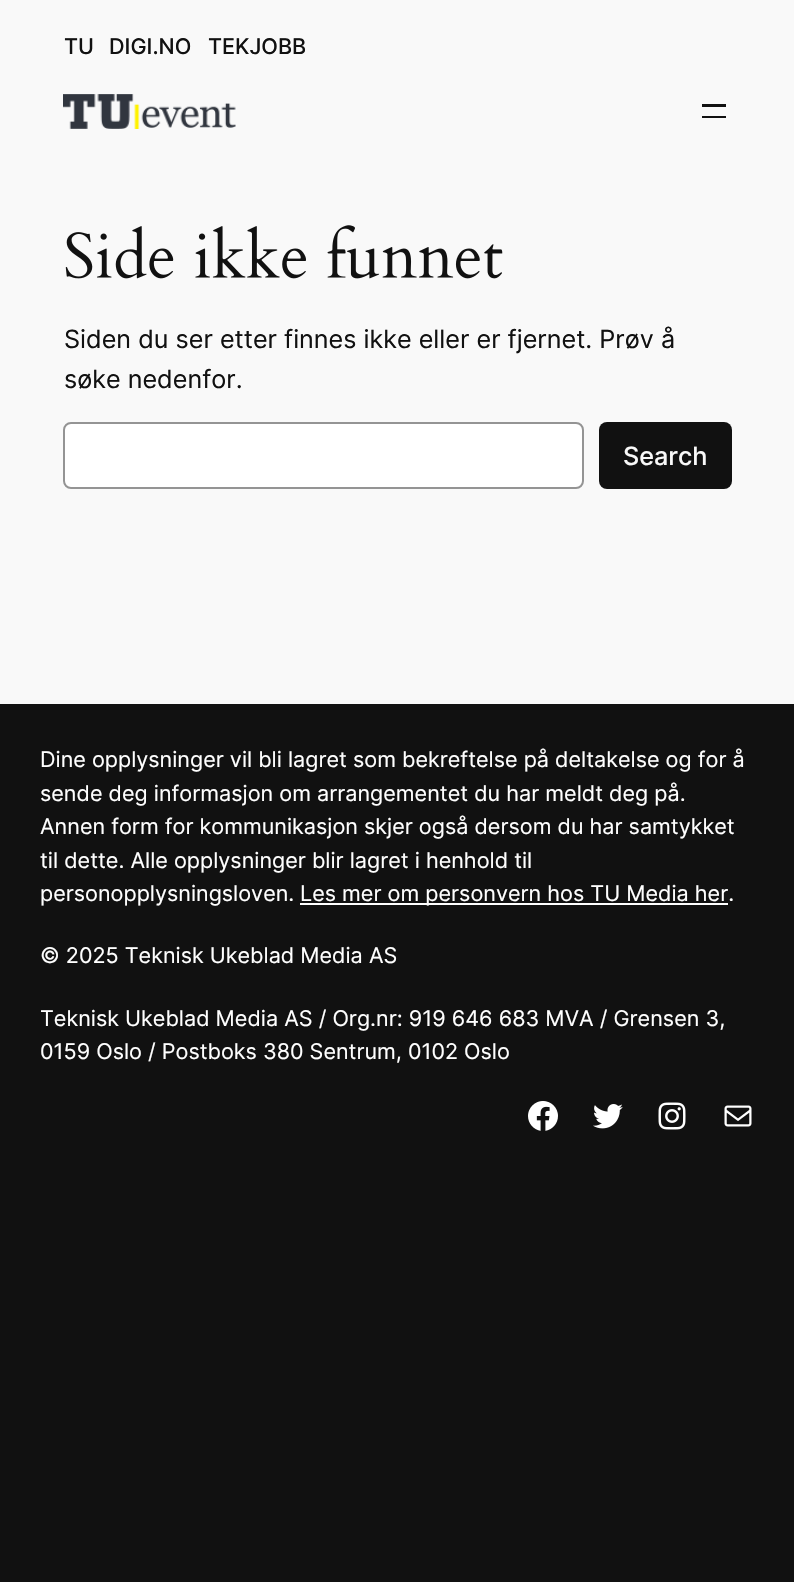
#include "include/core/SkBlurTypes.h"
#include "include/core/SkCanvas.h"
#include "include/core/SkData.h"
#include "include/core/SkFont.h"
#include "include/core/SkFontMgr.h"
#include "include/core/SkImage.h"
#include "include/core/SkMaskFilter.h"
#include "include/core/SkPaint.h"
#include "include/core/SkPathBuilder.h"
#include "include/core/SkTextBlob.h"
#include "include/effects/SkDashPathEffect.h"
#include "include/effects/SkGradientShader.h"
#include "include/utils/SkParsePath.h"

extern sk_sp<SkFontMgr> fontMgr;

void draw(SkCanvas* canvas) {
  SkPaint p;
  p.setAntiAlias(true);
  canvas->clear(SkColorSetRGB(17, 17, 17));
  p.setColor(SkColorSetRGB(249, 249, 249));
  canvas->drawRect(SkRect::MakeLTRB(0, 0, 794, 704), p);
  canvas->drawImageRect(SkImages::DeferredFromEncodedData(SkData::MakeFromFileName("images/1.png")), SkRect::MakeLTRB(63, 94, 236, 129), SkSamplingOptions());
  p.setColor(SkColorSetRGB(17, 17, 17));
  canvas->drawRect(SkRect::MakeLTRB(702, 104, 726, 107), p);
  canvas->drawRect(SkRect::MakeLTRB(702, 116, 726, 118), p);
  canvas->drawImageRect(SkImages::DeferredFromEncodedData(SkData::MakeFromFileName("images/2.png")), SkRect::MakeLTRB(65, 225, 503, 279), SkSamplingOptions());
  p.setColor(SK_ColorWHITE);
  canvas->drawRoundRect(SkRect::MakeLTRB(64, 423, 583, 488), 7, 7, p);
  p.setStyle(SkPaint::kStroke_Style);
  p.setStrokeWidth(2);
  p.setColor(SkColorSetRGB(148, 148, 148));
  canvas->drawRoundRect(SkRect::MakeLTRB(64, 423, 583, 488), 7, 7, p);
  p.setStyle(SkPaint::kFill_Style);
  p.setColor(SkColorSetRGB(17, 17, 17));
  canvas->drawRoundRect(SkRect::MakeLTRB(599, 422, 732, 489), 8, 8, p);
  p.setColor(SK_ColorWHITE);
  canvas->drawRect(SkRect::MakeLTRB(300, 903, 728, 905), p);
  canvas->drawImageRect(SkImages::DeferredFromEncodedData(SkData::MakeFromFileName("images/3.png")), SkRect::MakeLTRB(528, 1101, 558, 1131), SkSamplingOptions());
  canvas->drawImageRect(SkImages::DeferredFromEncodedData(SkData::MakeFromFileName("images/4.png")), SkRect::MakeLTRB(593, 1104, 623, 1129), SkSamplingOptions());
  canvas->drawImageRect(SkImages::DeferredFromEncodedData(SkData::MakeFromFileName("images/5.png")), SkRect::MakeLTRB(658, 1102, 686, 1130), SkSamplingOptions());
  canvas->drawImageRect(SkImages::DeferredFromEncodedData(SkData::MakeFromFileName("images/6.png")), SkRect::MakeLTRB(724, 1105, 752, 1127), SkSamplingOptions());
  SkFont font1(fontMgr->matchFamilyStyle("Inter", SkFontStyle(500, SkFontStyle::kNormal_Width, SkFontStyle::kUpright_Slant)), 21.6f);
  font1.setSubpixel(true);
  p.setColor(SkColorSetRGB(17, 17, 17));
  canvas->drawString("TU", 64, 54, font1, p);
  canvas->drawString("DIGI.NO", 109, 54, font1, p);
  canvas->drawString("TEKJOBB", 208, 54, font1, p);
  SkFont font2(fontMgr->matchFamilyStyle("Inter", SkFontStyle::Normal()), 25.2f);
  font2.setSubpixel(true);
  canvas->drawString("Siden du ser etter finnes ikke eller er fjernet. Prøv å", 64, 348, font2, p);
  canvas->drawString("søke nedenfor.", 64, 388, font2, p);
  SkFont font3(fontMgr->matchFamilyStyle("Inter", SkFontStyle(500, SkFontStyle::kNormal_Width, SkFontStyle::kUpright_Slant)), 25.2f);
  font3.setSubpixel(true);
  p.setColor(SkColorSetRGB(249, 249, 249));
  canvas->drawString("Search", 623, 465, font3, p);
  SkFont font4(fontMgr->matchFamilyStyle("Inter", SkFontStyle::Normal()), 21.6f);
  font4.setSubpixel(true);
  p.setColor(SK_ColorWHITE);
  canvas->drawString("Dine opplysninger vil bli lagret som bekreftelse på deltakelse og for å", 40, 767, font4, p);
  canvas->drawString("sende deg informasjon om arrangementet du har meldt deg på.", 40, 801, font4, p);
  canvas->drawString("Annen form for kommunikasjon skjer også dersom du har samtykket", 40, 834, font4, p);
  canvas->drawString("til dette. Alle opplysninger blir lagret i henhold til", 40, 868, font4, p);
  canvas->drawString("personopplysningsloven.", 40, 901, font4, p);
  canvas->drawString("Les mer om personvern hos TU Media her.", 300, 901, font4, p);
  canvas->drawString("© 2025 Teknisk Ukeblad Media AS", 40, 963, font4, p);
  canvas->drawString("Teknisk Ukeblad Media AS / Org.nr: 919 646 683 MVA / Grensen 3,", 40, 1026, font4, p);
  canvas->drawString("0159 Oslo / Postboks 380 Sentrum, 0102 Oslo", 40, 1059, font4, p);
}
